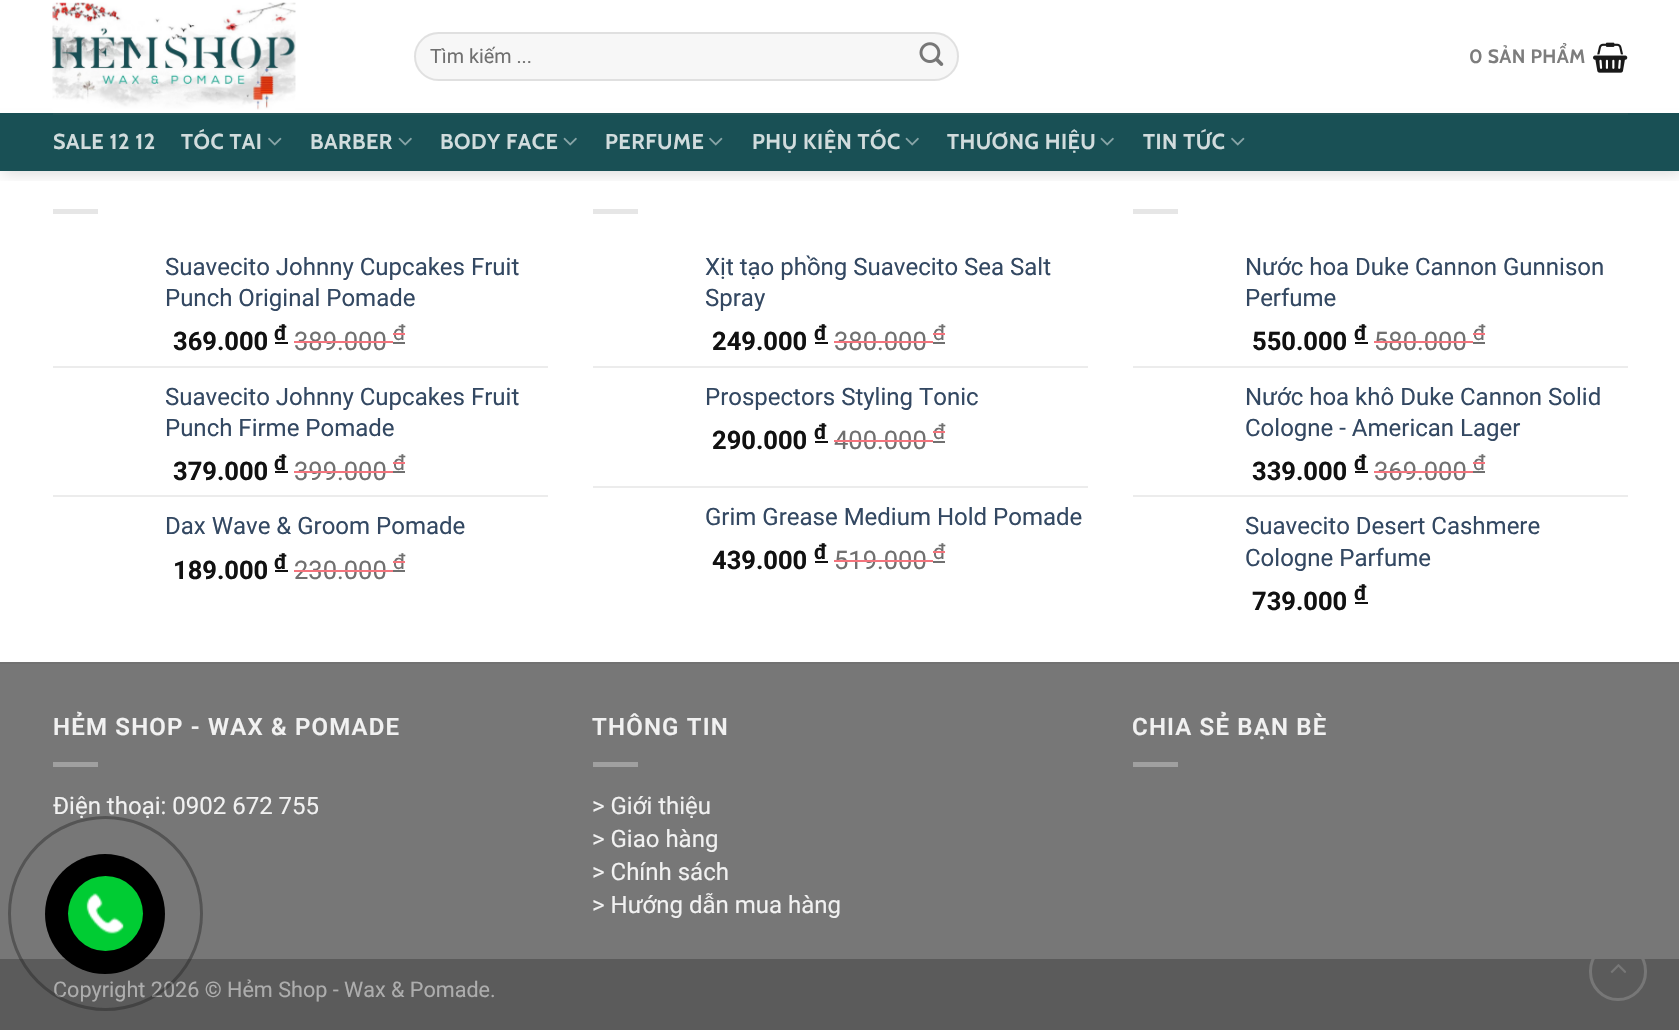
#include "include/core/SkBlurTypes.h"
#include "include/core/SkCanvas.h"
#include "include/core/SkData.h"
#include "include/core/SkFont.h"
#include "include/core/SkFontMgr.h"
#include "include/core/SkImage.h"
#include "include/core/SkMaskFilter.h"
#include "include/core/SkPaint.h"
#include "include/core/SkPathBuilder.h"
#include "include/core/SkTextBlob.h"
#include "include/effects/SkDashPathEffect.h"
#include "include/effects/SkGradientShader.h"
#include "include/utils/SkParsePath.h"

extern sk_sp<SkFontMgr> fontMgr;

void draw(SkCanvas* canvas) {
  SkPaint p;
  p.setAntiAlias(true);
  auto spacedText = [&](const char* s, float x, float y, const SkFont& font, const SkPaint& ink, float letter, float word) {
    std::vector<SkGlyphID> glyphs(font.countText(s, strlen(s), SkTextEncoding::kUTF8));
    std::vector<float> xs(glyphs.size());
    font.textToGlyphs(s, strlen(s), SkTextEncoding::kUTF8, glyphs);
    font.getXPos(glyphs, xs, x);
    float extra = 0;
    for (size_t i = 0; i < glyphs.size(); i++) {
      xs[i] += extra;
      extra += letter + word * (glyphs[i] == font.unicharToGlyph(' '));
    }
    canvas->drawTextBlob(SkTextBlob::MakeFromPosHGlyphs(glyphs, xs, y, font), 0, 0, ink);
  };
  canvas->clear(SK_ColorWHITE);
  p.setColor(SkColorSetRGB(242, 242, 242));
  canvas->drawRect(SkRect::MakeLTRB(0, 108, 1679, 110), p);
  canvas->save();
  canvas->clipRect(SkRect::MakeLTRB(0, 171, 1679, 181));
  p.setColor(SkColorSetARGB(38, 0, 0, 0));
  p.setMaskFilter(SkMaskFilter::MakeBlur(kNormal_SkBlurStyle, 7.5f));
  canvas->drawRect(SkRect::MakeLTRB(2, 2, 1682, 173), p);
  p.setMaskFilter(nullptr);
  canvas->restore();
  p.setColor(SkColorSetARGB(230, 255, 255, 255));
  canvas->drawRect(SkRect::MakeLTRB(0, 108, 1679, 110), p);
  canvas->drawImageRect(SkImages::DeferredFromEncodedData(SkData::MakeFromFileName("images/1.png")), SkRect::MakeLTRB(52, 2, 296, 110), SkSamplingOptions());
  p.setColor(SkColorSetRGB(247, 247, 247));
  canvas->drawRoundRect(SkRect::MakeLTRB(414, 32, 959, 81), 24.5f, 24.5f, p);
  p.setStyle(SkPaint::kStroke_Style);
  p.setStrokeWidth(2);
  p.setColor(SkColorSetARGB(23, 0, 0, 0));
  canvas->drawRoundRect(SkRect::MakeLTRB(415, 33, 958, 80), 23.5f, 23.5f, p);
  canvas->drawImageRect(SkImages::DeferredFromEncodedData(SkData::MakeFromFileName("images/2.png")), SkRect::MakeLTRB(919, 42, 944, 66), SkSamplingOptions());
  canvas->drawImageRect(SkImages::DeferredFromEncodedData(SkData::MakeFromFileName("images/3.png")), SkRect::MakeLTRB(1593, 42, 1628, 73), SkSamplingOptions());
  p.setStyle(SkPaint::kFill_Style);
  p.setColor(SkColorSetRGB(25, 80, 85));
  canvas->drawRect(SkRect::MakeLTRB(0, 113, 1679, 171), p);
  p.setColor(SkColorSetRGB(34, 84, 88));
  canvas->drawRect(SkRect::MakeLTRB(53, 113, 1628, 115), p);
  canvas->drawImageRect(SkImages::DeferredFromEncodedData(SkData::MakeFromFileName("images/4.png")), SkRect::MakeLTRB(268, 137, 282, 146), SkSamplingOptions());
  canvas->drawImageRect(SkImages::DeferredFromEncodedData(SkData::MakeFromFileName("images/5.png")), SkRect::MakeLTRB(398, 137, 412, 146), SkSamplingOptions());
  canvas->drawImageRect(SkImages::DeferredFromEncodedData(SkData::MakeFromFileName("images/5.png")), SkRect::MakeLTRB(563, 137, 577, 146), SkSamplingOptions());
  canvas->drawImageRect(SkImages::DeferredFromEncodedData(SkData::MakeFromFileName("images/4.png")), SkRect::MakeLTRB(709, 137, 723, 146), SkSamplingOptions());
  canvas->drawImageRect(SkImages::DeferredFromEncodedData(SkData::MakeFromFileName("images/5.png")), SkRect::MakeLTRB(905, 137, 919, 146), SkSamplingOptions());
  canvas->drawImageRect(SkImages::DeferredFromEncodedData(SkData::MakeFromFileName("images/5.png")), SkRect::MakeLTRB(1100, 137, 1114, 146), SkSamplingOptions());
  canvas->drawImageRect(SkImages::DeferredFromEncodedData(SkData::MakeFromFileName("images/4.png")), SkRect::MakeLTRB(1231, 137, 1245, 146), SkSamplingOptions());
  p.setColor(SkColorSetRGB(230, 230, 230));
  canvas->drawRect(SkRect::MakeLTRB(53, 209, 98, 214), p);
  p.setColor(SkColorSetRGB(17, 17, 17));
  canvas->drawRect(SkRect::MakeLTRB(275, 342, 288, 344), p);
  p.setColor(SkColorSetRGB(112, 112, 112));
  canvas->drawRect(SkRect::MakeLTRB(393, 342, 405, 344), p);
  p.setColor(SkColorSetRGB(236, 236, 236));
  canvas->drawRect(SkRect::MakeLTRB(53, 366, 548, 368), p);
  p.setColor(SkColorSetRGB(17, 17, 17));
  canvas->drawRect(SkRect::MakeLTRB(275, 471, 288, 473), p);
  p.setColor(SkColorSetRGB(112, 112, 112));
  canvas->drawRect(SkRect::MakeLTRB(393, 471, 405, 473), p);
  p.setColor(SkColorSetRGB(236, 236, 236));
  canvas->drawRect(SkRect::MakeLTRB(53, 495, 548, 497), p);
  p.setColor(SkColorSetRGB(17, 17, 17));
  canvas->drawRect(SkRect::MakeLTRB(275, 570, 288, 572), p);
  p.setColor(SkColorSetRGB(112, 112, 112));
  canvas->drawRect(SkRect::MakeLTRB(393, 570, 405, 572), p);
  p.setColor(SkColorSetRGB(230, 230, 230));
  canvas->drawRect(SkRect::MakeLTRB(593, 209, 638, 214), p);
  p.setColor(SkColorSetRGB(17, 17, 17));
  canvas->drawRect(SkRect::MakeLTRB(815, 342, 828, 344), p);
  p.setColor(SkColorSetRGB(112, 112, 112));
  canvas->drawRect(SkRect::MakeLTRB(933, 342, 945, 344), p);
  p.setColor(SkColorSetRGB(236, 236, 236));
  canvas->drawRect(SkRect::MakeLTRB(593, 366, 1088, 368), p);
  p.setColor(SkColorSetRGB(17, 17, 17));
  canvas->drawRect(SkRect::MakeLTRB(815, 441, 828, 443), p);
  p.setColor(SkColorSetRGB(112, 112, 112));
  canvas->drawRect(SkRect::MakeLTRB(933, 441, 945, 443), p);
  p.setColor(SkColorSetRGB(236, 236, 236));
  canvas->drawRect(SkRect::MakeLTRB(593, 486, 1088, 488), p);
  p.setColor(SkColorSetRGB(17, 17, 17));
  canvas->drawRect(SkRect::MakeLTRB(815, 561, 828, 563), p);
  p.setColor(SkColorSetRGB(112, 112, 112));
  canvas->drawRect(SkRect::MakeLTRB(933, 561, 945, 563), p);
  p.setColor(SkColorSetRGB(230, 230, 230));
  canvas->drawRect(SkRect::MakeLTRB(1133, 209, 1178, 214), p);
  p.setColor(SkColorSetRGB(17, 17, 17));
  canvas->drawRect(SkRect::MakeLTRB(1355, 342, 1368, 344), p);
  p.setColor(SkColorSetRGB(112, 112, 112));
  canvas->drawRect(SkRect::MakeLTRB(1473, 342, 1485, 344), p);
  p.setColor(SkColorSetRGB(236, 236, 236));
  canvas->drawRect(SkRect::MakeLTRB(1133, 366, 1628, 368), p);
  p.setColor(SkColorSetRGB(17, 17, 17));
  canvas->drawRect(SkRect::MakeLTRB(1355, 471, 1368, 473), p);
  p.setColor(SkColorSetRGB(112, 112, 112));
  canvas->drawRect(SkRect::MakeLTRB(1473, 471, 1485, 473), p);
  p.setColor(SkColorSetRGB(236, 236, 236));
  canvas->drawRect(SkRect::MakeLTRB(1133, 495, 1628, 497), p);
  p.setColor(SkColorSetRGB(17, 17, 17));
  canvas->drawRect(SkRect::MakeLTRB(1355, 602, 1368, 604), p);
  p.setColor(SkColorSetRGB(119, 119, 119));
  canvas->drawRect(SkRect::MakeLTRB(0, 664, 1679, 959), p);
  p.setColor(SkColorSetRGB(113, 113, 113));
  canvas->drawRect(SkRect::MakeLTRB(0, 662, 1679, 664), p);
  p.setColor(SkColorSetRGB(160, 160, 160));
  canvas->drawRect(SkRect::MakeLTRB(53, 762, 98, 767), p);
  canvas->drawRect(SkRect::MakeLTRB(593, 762, 638, 767), p);
  canvas->drawRect(SkRect::MakeLTRB(1133, 762, 1178, 767), p);
  p.setColor(SkColorSetRGB(91, 91, 91));
  canvas->drawRect(SkRect::MakeLTRB(0, 959, 1679, 1030), p);
  p.setStyle(SkPaint::kStroke_Style);
  p.setStrokeWidth(3);
  p.setColor(SkColorSetRGB(119, 119, 119));
  canvas->drawRoundRect(SkRect::MakeLTRB(1590.5f, 943.5f, 1645.5f, 999.5f), 27.5f, 27.5f, p);
  canvas->drawImageRect(SkImages::DeferredFromEncodedData(SkData::MakeFromFileName("images/6.png")), SkRect::MakeLTRB(1610, 964, 1626, 973), SkSamplingOptions());
  SkFont font1(fontMgr->matchFamilyStyle("Roboto", SkFontStyle::Normal()), 19.75f);
  font1.setSubpixel(true);
  p.setStyle(SkPaint::kFill_Style);
  p.setColor(SkColorSetRGB(112, 112, 112));
  canvas->drawString("Tìm kiếm ...", 430, 63, font1, p);
  SkFont font2(fontMgr->matchFamilyStyle("Cabin", SkFontStyle::Bold()), 19.25f);
  font2.setSubpixel(true);
  p.setColor(SkColorSetRGB(125, 125, 125));
  spacedText("0 SẢN PHẨM", 1469, 63, font2, p, 0.4f, 0);
  SkFont font3(fontMgr->matchFamilyStyle("Cabin", SkFontStyle::Bold()), 21.6f);
  font3.setSubpixel(true);
  p.setColor(SkColorSetRGB(209, 220, 221));
  spacedText("SALE 12 12", 53, 149, font3, p, 0.5f, 0);
  spacedText("TÓC TAI", 181, 149, font3, p, 0.5f, 0);
  spacedText("BARBER", 310, 149, font3, p, 0.5f, 0);
  spacedText("BODY FACE", 440, 149, font3, p, 0.5f, 0);
  spacedText("PERFUME", 605, 149, font3, p, 0.5f, 0);
  spacedText("PHỤ KIỆN TÓC", 752, 149, font3, p, 0.5f, 0);
  spacedText("THƯƠNG HIỆU", 947, 149, font3, p, 0.5f, 0);
  spacedText("TIN TỨC", 1143, 149, font3, p, 0.5f, 0);
  SkFont font4(fontMgr->matchFamilyStyle("Roboto", SkFontStyle::Normal()), 24);
  font4.setSubpixel(true);
  p.setColor(SkColorSetRGB(51, 72, 98));
  canvas->drawString("Suavecito Johnny Cupcakes Fruit", 165, 275, font4, p);
  canvas->drawString("Punch Original Pomade", 165, 306, font4, p);
  SkFont font5(fontMgr->matchFamilyStyle("Roboto", SkFontStyle::Bold()), 25.5f);
  font5.setSubpixel(true);
  p.setColor(SkColorSetRGB(17, 17, 17));
  canvas->drawString("369.000", 173, 350, font5, p);
  SkFont font6(fontMgr->matchFamilyStyle("Roboto", SkFontStyle::Bold()), 21);
  font6.setSubpixel(true);
  canvas->drawString("đ", 274, 340, font6, p);
  SkFont font7(fontMgr->matchFamilyStyle("Roboto", SkFontStyle::Normal()), 25.5f);
  font7.setSubpixel(true);
  p.setColor(SkColorSetRGB(112, 112, 112));
  canvas->drawString("389.000", 294, 350, font7, p);
  p.setColor(SkColorSetRGB(244, 116, 125));
  canvas->drawRect(SkRect::MakeLTRB(294, 341, 393, 343), p);
  SkFont font8(fontMgr->matchFamilyStyle("Roboto", SkFontStyle::Normal()), 21);
  font8.setSubpixel(true);
  p.setColor(SkColorSetRGB(112, 112, 112));
  canvas->drawString("đ", 393, 340, font8, p);
  p.setColor(SkColorSetRGB(244, 116, 125));
  canvas->drawRect(SkRect::MakeLTRB(393, 333, 405, 335), p);
  p.setColor(SkColorSetRGB(51, 72, 98));
  canvas->drawString("Suavecito Johnny Cupcakes Fruit", 165, 405, font4, p);
  canvas->drawString("Punch Firme Pomade", 165, 436, font4, p);
  p.setColor(SkColorSetRGB(17, 17, 17));
  canvas->drawString("379.000", 173, 480, font5, p);
  canvas->drawString("đ", 274, 470, font6, p);
  p.setColor(SkColorSetRGB(112, 112, 112));
  canvas->drawString("399.000", 294, 480, font7, p);
  p.setColor(SkColorSetRGB(244, 116, 125));
  canvas->drawRect(SkRect::MakeLTRB(294, 471, 393, 473), p);
  p.setColor(SkColorSetRGB(112, 112, 112));
  canvas->drawString("đ", 393, 470, font8, p);
  p.setColor(SkColorSetRGB(244, 116, 125));
  canvas->drawRect(SkRect::MakeLTRB(393, 462, 405, 464), p);
  p.setColor(SkColorSetRGB(51, 72, 98));
  canvas->drawString("Dax Wave & Groom Pomade", 165, 534, font4, p);
  p.setColor(SkColorSetRGB(17, 17, 17));
  canvas->drawString("189.000", 173, 579, font5, p);
  canvas->drawString("đ", 274, 569, font6, p);
  p.setColor(SkColorSetRGB(112, 112, 112));
  canvas->drawString("230.000", 294, 579, font7, p);
  p.setColor(SkColorSetRGB(244, 116, 125));
  canvas->drawRect(SkRect::MakeLTRB(294, 570, 393, 572), p);
  p.setColor(SkColorSetRGB(112, 112, 112));
  canvas->drawString("đ", 393, 569, font8, p);
  p.setColor(SkColorSetRGB(244, 116, 125));
  canvas->drawRect(SkRect::MakeLTRB(393, 561, 405, 563), p);
  p.setColor(SkColorSetRGB(51, 72, 98));
  canvas->drawString("Xịt tạo phồng Suavecito Sea Salt", 705, 275, font4, p);
  canvas->drawString("Spray", 705, 306, font4, p);
  p.setColor(SkColorSetRGB(17, 17, 17));
  canvas->drawString("249.000", 712, 350, font5, p);
  canvas->drawString("đ", 814, 340, font6, p);
  p.setColor(SkColorSetRGB(112, 112, 112));
  canvas->drawString("380.000", 834, 350, font7, p);
  p.setColor(SkColorSetRGB(244, 116, 125));
  canvas->drawRect(SkRect::MakeLTRB(834, 341, 933, 343), p);
  p.setColor(SkColorSetRGB(112, 112, 112));
  canvas->drawString("đ", 933, 340, font8, p);
  p.setColor(SkColorSetRGB(244, 116, 125));
  canvas->drawRect(SkRect::MakeLTRB(933, 333, 945, 335), p);
  p.setColor(SkColorSetRGB(51, 72, 98));
  canvas->drawString("Prospectors Styling Tonic", 705, 405, font4, p);
  p.setColor(SkColorSetRGB(17, 17, 17));
  canvas->drawString("290.000", 712, 449, font5, p);
  canvas->drawString("đ", 814, 439, font6, p);
  p.setColor(SkColorSetRGB(112, 112, 112));
  canvas->drawString("400.000", 834, 449, font7, p);
  p.setColor(SkColorSetRGB(244, 116, 125));
  canvas->drawRect(SkRect::MakeLTRB(834, 440, 933, 442), p);
  p.setColor(SkColorSetRGB(112, 112, 112));
  canvas->drawString("đ", 933, 439, font8, p);
  p.setColor(SkColorSetRGB(244, 116, 125));
  canvas->drawRect(SkRect::MakeLTRB(933, 431, 945, 433), p);
  p.setColor(SkColorSetRGB(51, 72, 98));
  canvas->drawString("Grim Grease Medium Hold Pomade", 705, 525, font4, p);
  p.setColor(SkColorSetRGB(17, 17, 17));
  canvas->drawString("439.000", 712, 569, font5, p);
  canvas->drawString("đ", 814, 559, font6, p);
  p.setColor(SkColorSetRGB(112, 112, 112));
  canvas->drawString("519.000", 834, 569, font7, p);
  p.setColor(SkColorSetRGB(244, 116, 125));
  canvas->drawRect(SkRect::MakeLTRB(834, 560, 933, 562), p);
  p.setColor(SkColorSetRGB(112, 112, 112));
  canvas->drawString("đ", 933, 559, font8, p);
  p.setColor(SkColorSetRGB(244, 116, 125));
  canvas->drawRect(SkRect::MakeLTRB(933, 551, 945, 553), p);
  p.setColor(SkColorSetRGB(51, 72, 98));
  canvas->drawString("Nước hoa Duke Cannon Gunnison", 1245, 275, font4, p);
  canvas->drawString("Perfume", 1245, 306, font4, p);
  p.setColor(SkColorSetRGB(17, 17, 17));
  canvas->drawString("550.000", 1252, 350, font5, p);
  canvas->drawString("đ", 1354, 340, font6, p);
  p.setColor(SkColorSetRGB(112, 112, 112));
  canvas->drawString("580.000", 1374, 350, font7, p);
  p.setColor(SkColorSetRGB(244, 116, 125));
  canvas->drawRect(SkRect::MakeLTRB(1374, 341, 1473, 343), p);
  p.setColor(SkColorSetRGB(112, 112, 112));
  canvas->drawString("đ", 1473, 340, font8, p);
  p.setColor(SkColorSetRGB(244, 116, 125));
  canvas->drawRect(SkRect::MakeLTRB(1473, 333, 1485, 335), p);
  p.setColor(SkColorSetRGB(51, 72, 98));
  canvas->drawString("Nước hoa khô Duke Cannon Solid", 1245, 405, font4, p);
  canvas->drawString("Cologne - American Lager", 1245, 436, font4, p);
  p.setColor(SkColorSetRGB(17, 17, 17));
  canvas->drawString("339.000", 1252, 480, font5, p);
  canvas->drawString("đ", 1354, 470, font6, p);
  p.setColor(SkColorSetRGB(112, 112, 112));
  canvas->drawString("369.000", 1374, 480, font7, p);
  p.setColor(SkColorSetRGB(244, 116, 125));
  canvas->drawRect(SkRect::MakeLTRB(1374, 471, 1473, 473), p);
  p.setColor(SkColorSetRGB(112, 112, 112));
  canvas->drawString("đ", 1473, 470, font8, p);
  p.setColor(SkColorSetRGB(244, 116, 125));
  canvas->drawRect(SkRect::MakeLTRB(1473, 462, 1485, 464), p);
  p.setColor(SkColorSetRGB(51, 72, 98));
  canvas->drawString("Suavecito Desert Cashmere", 1245, 534, font4, p);
  canvas->drawString("Cologne Parfume", 1245, 566, font4, p);
  p.setColor(SkColorSetRGB(17, 17, 17));
  canvas->drawString("739.000", 1252, 610, font5, p);
  canvas->drawString("đ", 1354, 600, font6, p);
  SkFont font9(fontMgr->matchFamilyStyle("Roboto", SkFontStyle(600, SkFontStyle::kNormal_Width, SkFontStyle::kUpright_Slant)), 24);
  font9.setSubpixel(true);
  p.setColor(SkColorSetRGB(241, 241, 241));
  spacedText("HẺM SHOP - WAX & POMADE", 53, 735, font9, p, 1.2f, 0);
  canvas->drawString("Điện thoại: 0902 672 755", 53, 814, font4, p);
  spacedText("THÔNG TIN", 592, 735, font9, p, 1.2f, 0);
  canvas->drawString("> Giới thiệu", 592, 814, font4, p);
  canvas->drawString("> Giao hàng", 592, 847, font4, p);
  canvas->drawString("> Chính sách", 592, 880, font4, p);
  canvas->drawString("> Hướng dẫn mua hàng", 592, 913, font4, p);
  spacedText("CHIA SẺ BẠN BÈ", 1132, 735, font9, p, 1.2f, 0);
  SkFont font10(fontMgr->matchFamilyStyle("Roboto", SkFontStyle::Normal()), 21.6f);
  font10.setSubpixel(true);
  p.setColor(SkColorSetRGB(173, 173, 173));
  canvas->drawString("Copyright 2026 © Hẻm Shop - Wax & Pomade.", 53, 997, font10, p);
  p.setStyle(SkPaint::kStroke_Style);
  p.setColor(SkColorSetARGB(102, 30, 30, 30));
  canvas->drawCircle(105.5f, 913.5f, 96, p);
  p.setStyle(SkPaint::kFill_Style);
  p.setColor(SK_ColorBLACK);
  canvas->drawCircle(105, 914, 60, p);
  p.setColor(SkColorSetRGB(0, 204, 51));
  canvas->drawCircle(105.5f, 913.5f, 37.5f, p);
  canvas->drawImageRect(SkImages::DeferredFromEncodedData(SkData::MakeFromFileName("images/7.png")), SkRect::MakeLTRB(86, 893, 124, 934), SkSamplingOptions());
}
